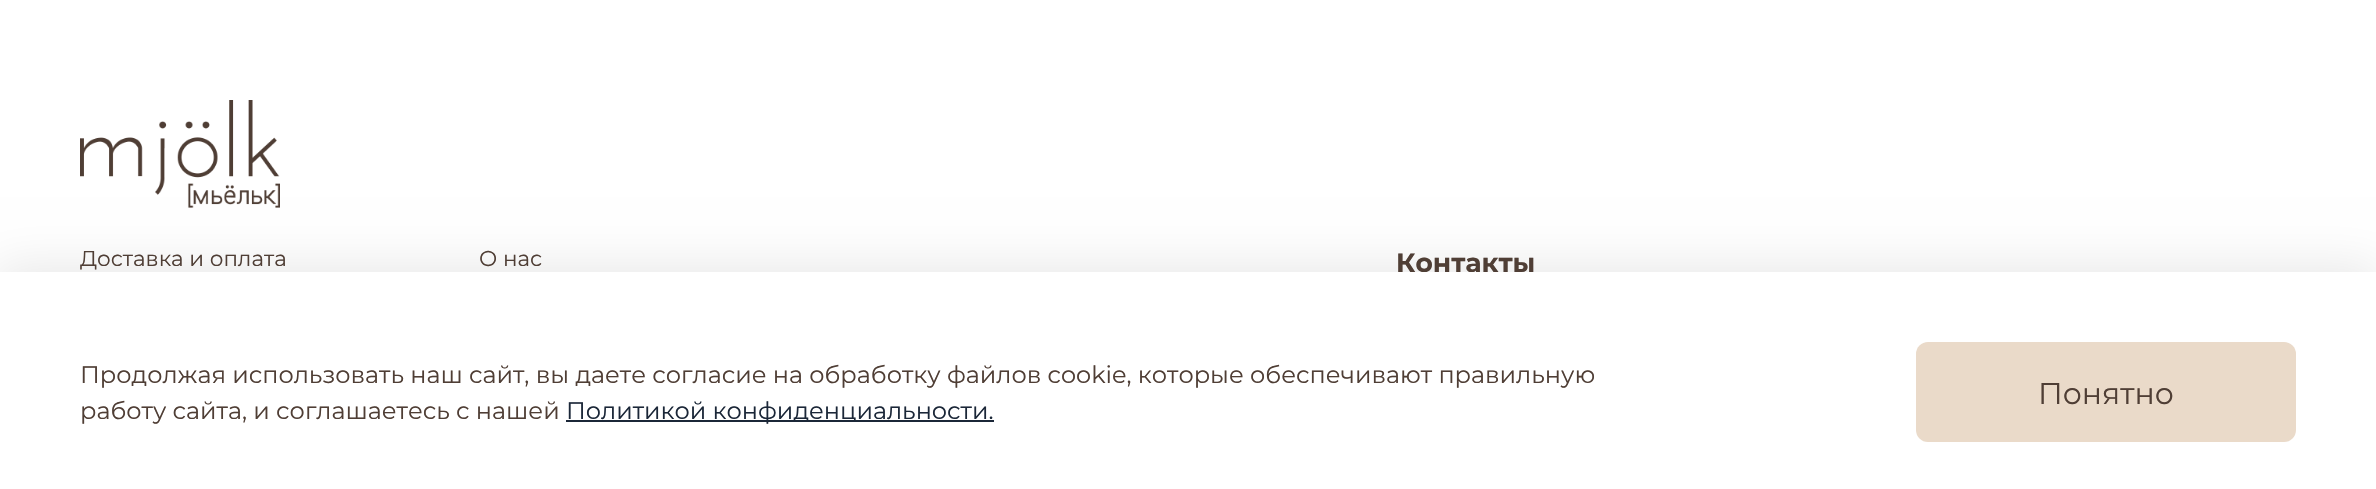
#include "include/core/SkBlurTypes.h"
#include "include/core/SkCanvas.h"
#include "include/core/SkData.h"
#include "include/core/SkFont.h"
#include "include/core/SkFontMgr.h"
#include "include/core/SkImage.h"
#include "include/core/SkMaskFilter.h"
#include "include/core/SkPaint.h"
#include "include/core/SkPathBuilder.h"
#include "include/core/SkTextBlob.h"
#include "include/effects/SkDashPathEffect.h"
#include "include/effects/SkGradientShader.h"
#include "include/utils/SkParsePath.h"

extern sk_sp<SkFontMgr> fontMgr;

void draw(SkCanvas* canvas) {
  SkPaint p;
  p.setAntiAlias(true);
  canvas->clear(SK_ColorWHITE);
  canvas->drawImageRect(SkImages::DeferredFromEncodedData(SkData::MakeFromFileName("images/1.png")), SkRect::MakeLTRB(80, 100, 280, 208), SkSamplingOptions());
  p.setColor(SkColorSetARGB(23, 0, 0, 0));
  p.setMaskFilter(SkMaskFilter::MakeBlur(kNormal_SkBlurStyle, 23));
  canvas->drawRect(SkRect::MakeLTRB(-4, 266, 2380, 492), p);
  p.setMaskFilter(nullptr);
  SkFont font1(fontMgr->matchFamilyStyle("Montserrat", SkFontStyle::Normal()), 21.5f);
  font1.setSubpixel(true);
  p.setColor(SkColorSetRGB(79, 62, 53));
  canvas->drawString("Доставка и оплата", 80, 266, font1, p);
  canvas->drawString("О нас", 479, 266, font1, p);
  SkFont font2(fontMgr->matchFamilyStyle("Montserrat", SkFontStyle::Bold()), 26.5f);
  font2.setSubpixel(true);
  canvas->drawString("Контакты", 1396, 272, font2, p);
  p.setColor(SK_ColorWHITE);
  canvas->drawRect(SkRect::MakeLTRB(0, 272, 2376, 489), p);
  SkFont font3(fontMgr->matchFamilyStyle("Montserrat", SkFontStyle::Normal()), 24);
  font3.setSubpixel(true);
  p.setColor(SkColorSetRGB(79, 62, 53));
  canvas->drawString("Продолжая использовать наш сайт, вы даете согласие на обработку файлов cookie, которые обеспечивают правильную", 80, 383, font3, p);
  canvas->drawString("работу сайта, и соглашаетесь с нашей", 80, 419, font3, p);
  p.setColor(SkColorSetRGB(27, 39, 56));
  canvas->drawRect(SkRect::MakeLTRB(566, 420, 994, 422), p);
  canvas->drawString("Политикой конфиденциальности.", 566, 419, font3, p);
  p.setColor(SkColorSetRGB(234, 218, 201));
  canvas->drawRoundRect(SkRect::MakeLTRB(1916, 342, 2296, 442), 12, 12, p);
  SkFont font4(fontMgr->matchFamilyStyle("Montserrat", SkFontStyle::Normal()), 30);
  font4.setSubpixel(true);
  p.setColor(SkColorSetRGB(79, 62, 53));
  canvas->drawString("Понятно", 2038, 404, font4, p);
}
